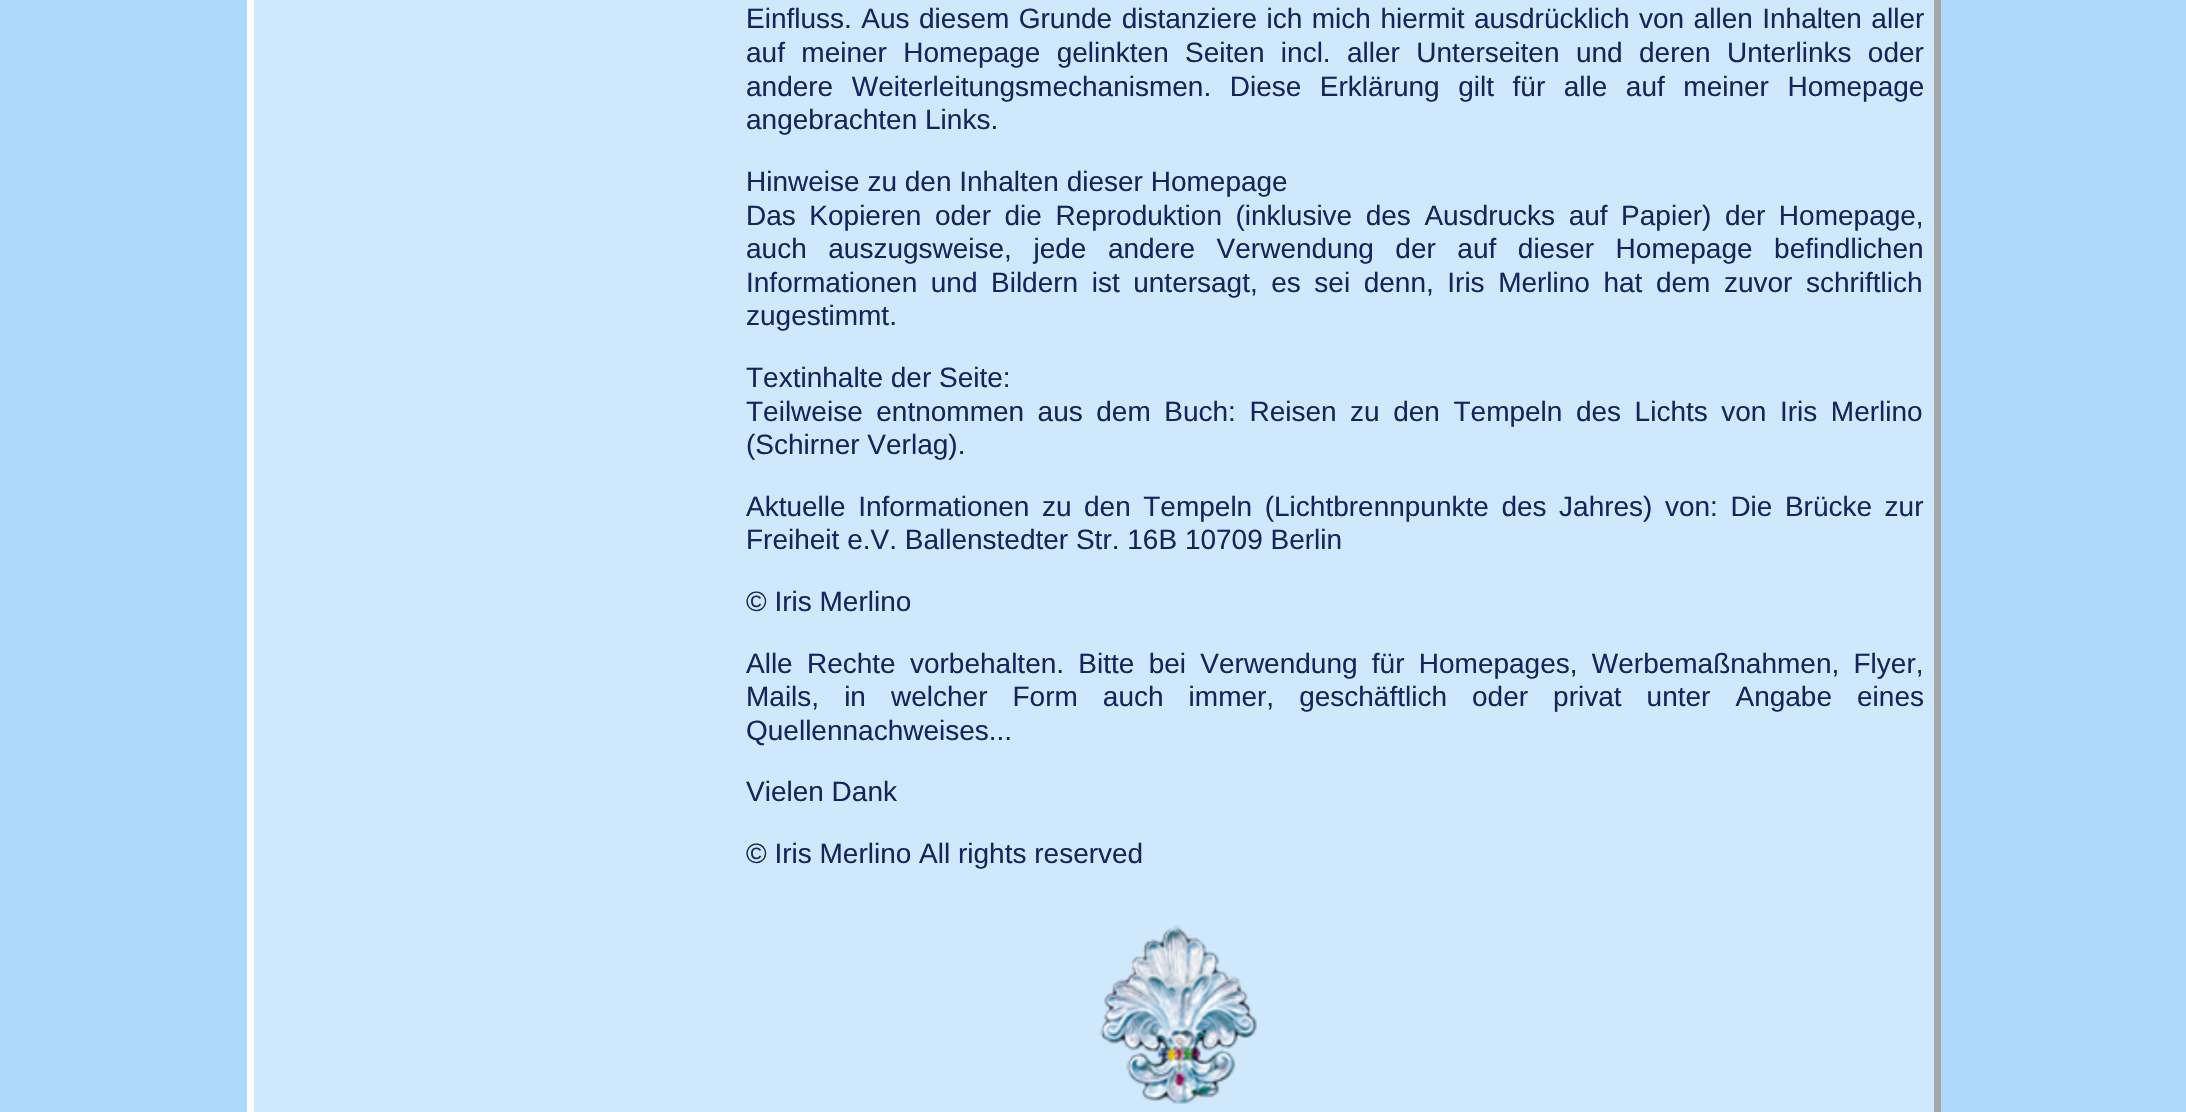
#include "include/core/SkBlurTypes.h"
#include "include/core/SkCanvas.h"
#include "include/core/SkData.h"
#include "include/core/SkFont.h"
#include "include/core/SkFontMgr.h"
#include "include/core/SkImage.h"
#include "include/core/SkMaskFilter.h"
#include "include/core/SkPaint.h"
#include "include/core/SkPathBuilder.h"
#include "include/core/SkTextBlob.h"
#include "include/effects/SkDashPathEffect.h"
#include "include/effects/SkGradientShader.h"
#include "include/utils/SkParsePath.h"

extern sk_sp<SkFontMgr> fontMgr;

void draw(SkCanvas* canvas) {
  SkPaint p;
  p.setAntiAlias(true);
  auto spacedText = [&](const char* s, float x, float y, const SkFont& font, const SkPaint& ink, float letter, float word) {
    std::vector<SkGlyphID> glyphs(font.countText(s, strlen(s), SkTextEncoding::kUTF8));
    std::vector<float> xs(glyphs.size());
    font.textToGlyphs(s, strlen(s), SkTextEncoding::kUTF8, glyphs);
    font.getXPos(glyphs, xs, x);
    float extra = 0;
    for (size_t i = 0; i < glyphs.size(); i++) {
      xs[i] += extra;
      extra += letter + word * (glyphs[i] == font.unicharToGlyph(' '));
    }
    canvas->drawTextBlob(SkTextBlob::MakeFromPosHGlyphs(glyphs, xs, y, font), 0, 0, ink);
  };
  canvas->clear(SkColorSetRGB(175, 217, 251));
  p.setColor(SkColorSetRGB(167, 167, 167));
  canvas->drawPath(SkPathBuilder().moveTo(1941, -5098).lineTo(1941, 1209).lineTo(1934, 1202).lineTo(1934, -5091).close().detach(), p);
  p.setColor(SK_ColorWHITE);
  canvas->drawPath(SkPathBuilder().moveTo(247, 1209).lineTo(247, -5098).lineTo(254, -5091).lineTo(254, 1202).close().detach(), p);
  p.setColor(SkColorSetRGB(207, 232, 252));
  canvas->drawRect(SkRect::MakeLTRB(254, 0, 1934, 1112), p);
  canvas->drawImageRect(SkImages::DeferredFromEncodedData(SkData::MakeFromFileName("images/1.png")), SkRect::MakeLTRB(1100, 925, 1257, 1104), SkSamplingOptions());
  SkFont font1(fontMgr->matchFamilyStyle("Liberation Sans", SkFontStyle::Normal()), 28);
  font1.setSubpixel(true);
  p.setColor(SkColorSetRGB(21, 37, 92));
  spacedText("Einfluss. Aus diesem Grunde distanziere ich mich hiermit ausdrücklich von allen Inhalten aller", 746, 28, font1, p, 0, 1.7f);
  spacedText("auf meiner Homepage gelinkten Seiten incl. aller Unterseiten und deren Unterlinks oder", 746, 62, font1, p, 0, 8.6f);
  spacedText("andere Weiterleitungsmechanismen. Diese Erklärung gilt für alle auf meiner Homepage", 746, 96, font1, p, 0, 10.75f);
  canvas->drawString("angebrachten Links.", 746, 129, font1, p);
  canvas->drawString("Hinweise zu den Inhalten dieser Homepage", 746, 191, font1, p);
  spacedText("Das Kopieren oder die Reproduktion (inklusive des Ausdrucks auf Papier) der Homepage,", 746, 225, font1, p, 0, 5.75f);
  spacedText("auch auszugsweise, jede andere Verwendung der auf dieser Homepage befindlichen", 746, 258, font1, p, 0, 13.75f);
  spacedText("Informationen und Bildern ist untersagt, es sei denn, Iris Merlino hat dem zuvor schriftlich", 746, 292, font1, p, 0, 5.75f);
  canvas->drawString("zugestimmt.", 746, 325, font1, p);
  canvas->drawString("Textinhalte der Seite:", 746, 387, font1, p);
  spacedText("Teilweise entnommen aus dem Buch: Reisen zu den Tempeln des Lichts von Iris Merlino", 746, 421, font1, p, 0, 5.75f);
  canvas->drawString("(Schirner Verlag).", 746, 454, font1, p);
  spacedText("Aktuelle Informationen zu den Tempeln (Lichtbrennpunkte des Jahres) von: Die Brücke zur", 746, 516, font1, p, 0, 4.75f);
  canvas->drawString("Freiheit e.V. Ballenstedter Str. 16B 10709 Berlin", 746, 549, font1, p);
  canvas->drawString("© Iris Merlino", 746, 611, font1, p);
  spacedText("Alle Rechte vorbehalten. Bitte bei Verwendung für Homepages, Werbemaßnahmen, Flyer,", 746, 673, font1, p, 0, 6.5f);
  spacedText("Mails, in welcher Form auch immer, geschäftlich oder privat unter Angabe eines", 746, 706, font1, p, 0, 17.25f);
  canvas->drawString("Quellennachweises...", 746, 740, font1, p);
  canvas->drawString("Vielen Dank", 746, 801, font1, p);
  canvas->drawString("© Iris Merlino All rights reserved", 746, 863, font1, p);
}
